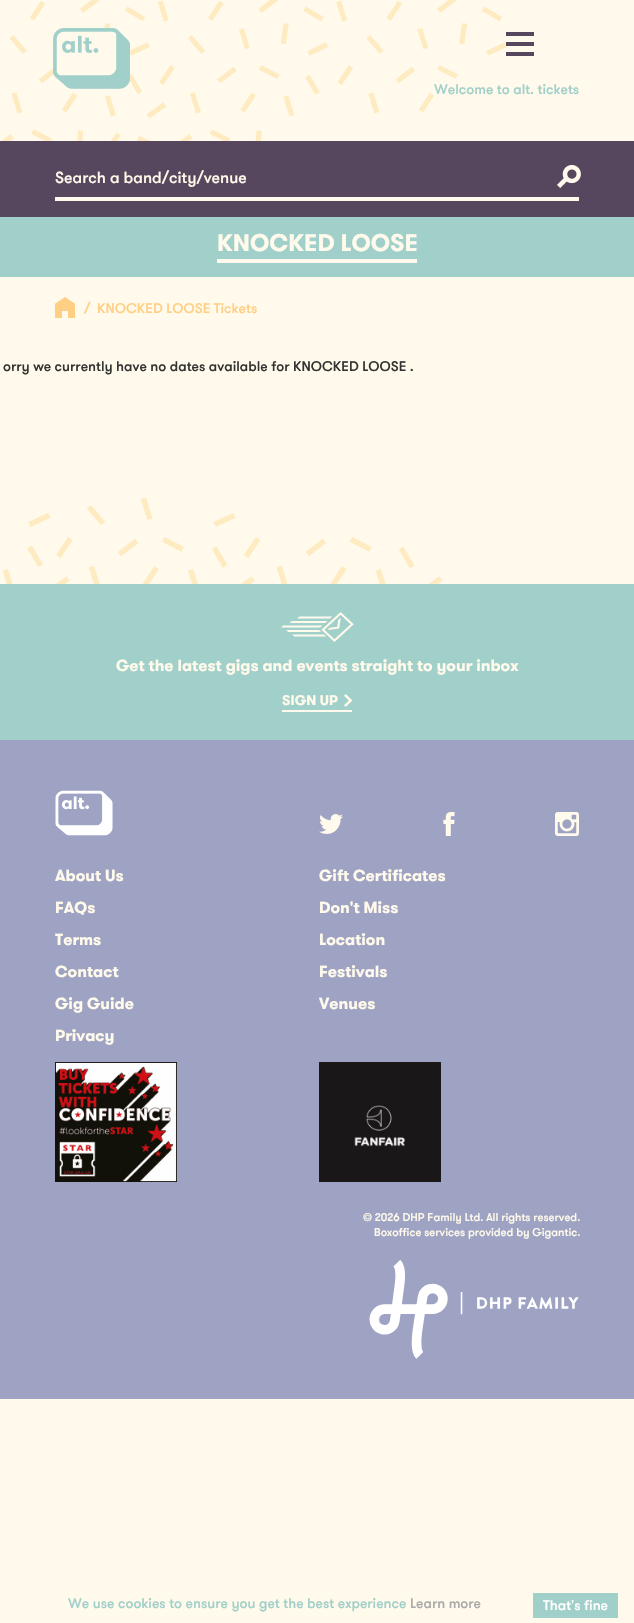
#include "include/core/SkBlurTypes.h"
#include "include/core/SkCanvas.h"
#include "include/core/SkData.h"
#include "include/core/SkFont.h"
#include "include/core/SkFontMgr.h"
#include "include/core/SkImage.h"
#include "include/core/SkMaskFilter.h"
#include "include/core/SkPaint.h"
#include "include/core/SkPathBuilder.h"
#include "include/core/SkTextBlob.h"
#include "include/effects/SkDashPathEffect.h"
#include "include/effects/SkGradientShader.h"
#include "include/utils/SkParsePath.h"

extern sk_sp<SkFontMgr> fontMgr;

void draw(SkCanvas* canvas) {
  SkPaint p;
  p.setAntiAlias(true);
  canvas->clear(SkColorSetRGB(255, 250, 235));
  canvas->drawImageRect(SkImages::DeferredFromEncodedData(SkData::MakeFromFileName("images/1.png")), SkRect::MakeLTRB(1, 0, 507, 141), SkSamplingOptions());
  canvas->drawImageRect(SkImages::DeferredFromEncodedData(SkData::MakeFromFileName("images/2.png")), SkRect::MakeLTRB(53, 28, 130, 89), SkSamplingOptions());
  p.setColor(SkColorSetRGB(87, 71, 94));
  canvas->drawRect(SkRect::MakeLTRB(506, 32, 534, 36), p);
  canvas->drawRect(SkRect::MakeLTRB(506, 42, 534, 46), p);
  canvas->drawRect(SkRect::MakeLTRB(506, 52, 534, 56), p);
  canvas->drawRect(SkRect::MakeLTRB(0, 141, 634, 217), p);
  p.setColor(SkColorSetRGB(255, 250, 235));
  canvas->drawRect(SkRect::MakeLTRB(55, 197, 579, 201), p);
  canvas->drawImageRect(SkImages::DeferredFromEncodedData(SkData::MakeFromFileName("images/3.png")), SkRect::MakeLTRB(557, 165, 581, 188), SkSamplingOptions());
  p.setColor(SkColorSetRGB(161, 208, 202));
  canvas->drawRect(SkRect::MakeLTRB(0, 217, 634, 277), p);
  p.setColor(SkColorSetRGB(255, 250, 235));
  canvas->drawRect(SkRect::MakeLTRB(217, 259, 417, 263), p);
  canvas->drawImageRect(SkImages::DeferredFromEncodedData(SkData::MakeFromFileName("images/4.png")), SkRect::MakeLTRB(55, 297, 75, 318), SkSamplingOptions());
  canvas->drawImageRect(SkImages::DeferredFromEncodedData(SkData::MakeFromFileName("images/5.png")), SkRect::MakeLTRB(2, 497, 443, 584), SkSamplingOptions());
  p.setColor(SkColorSetRGB(161, 208, 202));
  canvas->drawRect(SkRect::MakeLTRB(0, 584, 634, 740), p);
  canvas->drawImageRect(SkImages::DeferredFromEncodedData(SkData::MakeFromFileName("images/6.png")), SkRect::MakeLTRB(281, 612, 354, 642), SkSamplingOptions());
  p.setColor(SkColorSetRGB(255, 250, 235));
  canvas->drawRect(SkRect::MakeLTRB(282, 710, 352, 712), p);
  canvas->drawImageRect(SkImages::DeferredFromEncodedData(SkData::MakeFromFileName("images/7.png")), SkRect::MakeLTRB(344, 694, 352, 707), SkSamplingOptions());
  p.setColor(SkColorSetRGB(158, 163, 196));
  canvas->drawRect(SkRect::MakeLTRB(0, 740, 634, 1399), p);
  canvas->drawImageRect(SkImages::DeferredFromEncodedData(SkData::MakeFromFileName("images/8.png")), SkRect::MakeLTRB(55, 790, 113, 836), SkSamplingOptions());
  canvas->drawImageRect(SkImages::DeferredFromEncodedData(SkData::MakeFromFileName("images/9.png")), SkRect::MakeLTRB(319, 814, 343, 834), SkSamplingOptions());
  canvas->drawImageRect(SkImages::DeferredFromEncodedData(SkData::MakeFromFileName("images/10.png")), SkRect::MakeLTRB(443, 812, 455, 836), SkSamplingOptions());
  canvas->drawImageRect(SkImages::DeferredFromEncodedData(SkData::MakeFromFileName("images/11.png")), SkRect::MakeLTRB(555, 812, 579, 836), SkSamplingOptions());
  canvas->drawImageRect(SkImages::DeferredFromEncodedData(SkData::MakeFromFileName("images/12.png")), SkRect::MakeLTRB(55, 1062, 177, 1182), SkSamplingOptions());
  canvas->drawImageRect(SkImages::DeferredFromEncodedData(SkData::MakeFromFileName("images/13.png")), SkRect::MakeLTRB(319, 1062, 441, 1182), SkSamplingOptions());
  canvas->drawImageRect(SkImages::DeferredFromEncodedData(SkData::MakeFromFileName("images/14.png")), SkRect::MakeLTRB(369, 1260, 579, 1359), SkSamplingOptions());
  p.setColor(SkColorSetRGB(161, 208, 202));
  canvas->drawRect(SkRect::MakeLTRB(533, 1593, 618, 1618), p);
  SkFont font1(fontMgr->matchFamilyStyle("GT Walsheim", SkFontStyle(500, SkFontStyle::kNormal_Width, SkFontStyle::kUpright_Slant)), 14);
  font1.setSubpixel(true);
  canvas->drawString("Welcome to alt. tickets", 434, 94, font1, p);
  SkFont font2(fontMgr->matchFamilyStyle("GT Walsheim", SkFontStyle(500, SkFontStyle::kNormal_Width, SkFontStyle::kUpright_Slant)), 16);
  font2.setSubpixel(true);
  p.setColor(SkColorSetRGB(255, 250, 235));
  canvas->drawString("Search a band/city/venue", 55, 183, font2, p);
  SkFont font3(fontMgr->matchFamilyStyle("GT Walsheim", SkFontStyle::Bold()), 24);
  font3.setSubpixel(true);
  canvas->drawString("KNOCKED LOOSE", 217, 251, font3, p);
  p.setColor(SkColorSetRGB(255, 207, 132));
  canvas->drawString("/", 84, 313, font1, p);
  canvas->drawString("KNOCKED LOOSE Tickets", 97, 313, font1, p);
  p.setColor(SkColorSetRGB(51, 51, 51));
  canvas->drawString("orry we currently have no dates available for KNOCKED LOOSE .", 3, 371, font1, p);
  SkFont font4(fontMgr->matchFamilyStyle("GT Walsheim", SkFontStyle::Bold()), 16);
  font4.setSubpixel(true);
  p.setColor(SkColorSetRGB(255, 250, 235));
  canvas->drawString("Get the latest gigs and events straight to your inbox", 116, 671, font4, p);
  SkFont font5(fontMgr->matchFamilyStyle("GT Walsheim", SkFontStyle::Bold()), 14);
  font5.setSubpixel(true);
  canvas->drawString("SIGN UP", 282, 705, font5, p);
  canvas->drawString("About Us", 55, 881, font4, p);
  canvas->drawString("FAQs", 55, 913, font4, p);
  canvas->drawString("Terms", 55, 945, font4, p);
  canvas->drawString("Contact", 55, 977, font4, p);
  canvas->drawString("Gig Guide", 55, 1009, font4, p);
  canvas->drawString("Privacy", 55, 1041, font4, p);
  canvas->drawString("Gift Certificates", 319, 881, font4, p);
  canvas->drawString("Don't Miss", 319, 913, font4, p);
  canvas->drawString("Location", 319, 945, font4, p);
  canvas->drawString("Festivals", 319, 977, font4, p);
  canvas->drawString("Venues", 319, 1009, font4, p);
  SkFont font6(fontMgr->matchFamilyStyle("GT Walsheim", SkFontStyle(500, SkFontStyle::kNormal_Width, SkFontStyle::kUpright_Slant)), 11.25f);
  font6.setSubpixel(true);
  canvas->drawString("© 2026 DHP Family Ltd. All rights reserved.", 363, 1221, font6, p);
  canvas->drawString("Boxoffice services provided by Gigantic.", 374, 1236, font6, p);
  p.setColor(SkColorSetRGB(161, 208, 202));
  canvas->drawString("We use cookies to ensure you get the best experience", 68, 1608, font1, p);
  p.setColor(SkColorSetRGB(170, 170, 170));
  canvas->drawString("Learn more", 410, 1608, font1, p);
  p.setColor(SK_ColorWHITE);
  canvas->drawString("That's fine", 543, 1610, font1, p);
}
